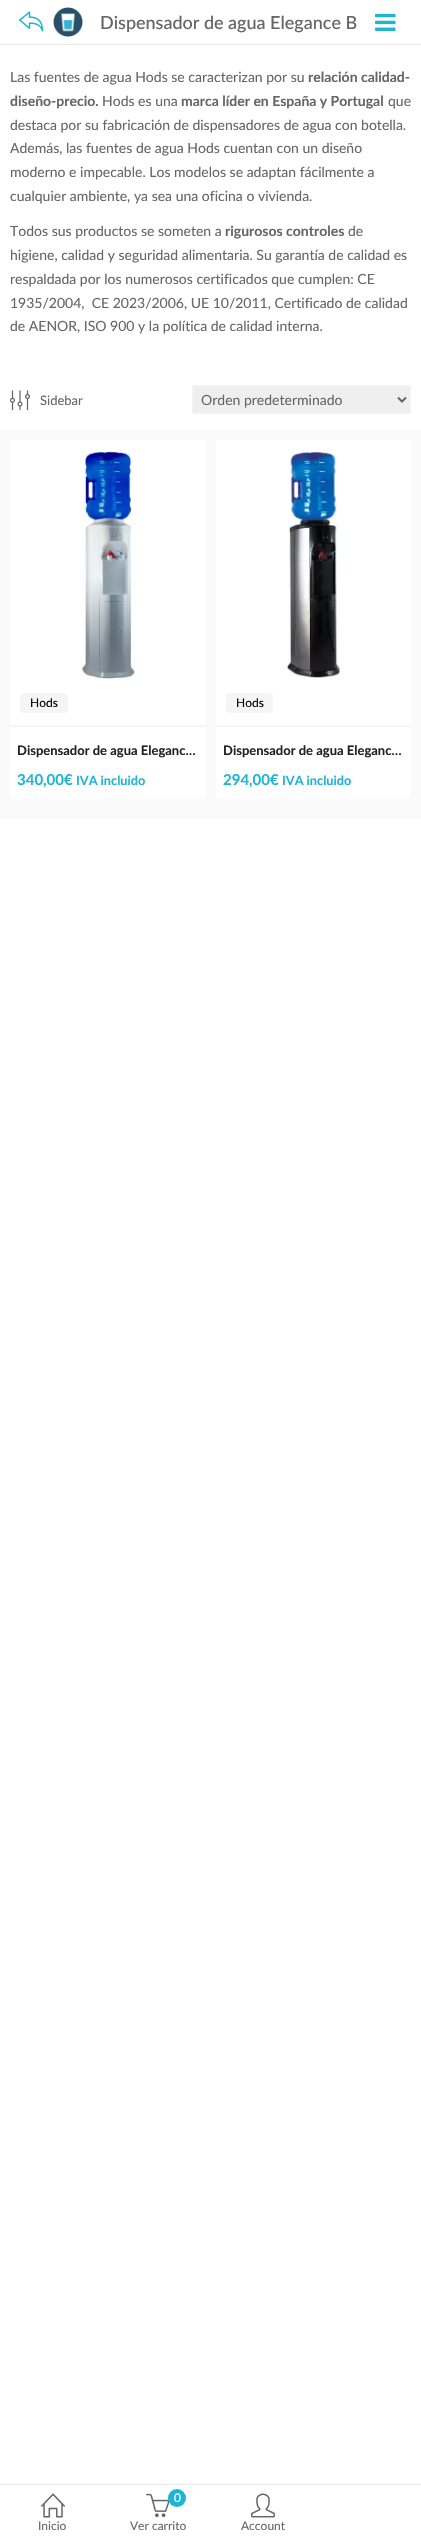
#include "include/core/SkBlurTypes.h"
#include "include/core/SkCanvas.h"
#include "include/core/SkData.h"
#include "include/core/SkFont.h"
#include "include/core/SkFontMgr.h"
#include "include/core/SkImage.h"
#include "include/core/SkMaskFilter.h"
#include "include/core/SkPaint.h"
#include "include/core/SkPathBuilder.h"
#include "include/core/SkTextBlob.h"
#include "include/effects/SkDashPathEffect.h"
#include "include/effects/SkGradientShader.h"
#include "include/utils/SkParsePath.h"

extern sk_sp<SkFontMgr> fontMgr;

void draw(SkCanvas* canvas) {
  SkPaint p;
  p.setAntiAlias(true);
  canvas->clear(SK_ColorWHITE);
  p.setColor(SkColorSetRGB(232, 232, 232));
  canvas->drawRect(SkRect::MakeLTRB(0, 44, 421, 45), p);
  canvas->drawImageRect(SkImages::DeferredFromEncodedData(SkData::MakeFromFileName("images/1.png")), SkRect::MakeLTRB(19, 11, 43, 32), SkSamplingOptions());
  canvas->drawImageRect(SkImages::DeferredFromEncodedData(SkData::MakeFromFileName("images/2.png")), SkRect::MakeLTRB(53, 7, 83, 37), SkSamplingOptions());
  canvas->drawImageRect(SkImages::DeferredFromEncodedData(SkData::MakeFromFileName("images/3.png")), SkRect::MakeLTRB(375, 13, 396, 31), SkSamplingOptions());
  canvas->drawImageRect(SkImages::DeferredFromEncodedData(SkData::MakeFromFileName("images/4.png")), SkRect::MakeLTRB(10, 390, 30, 411), SkSamplingOptions());
  p.setColor(SkColorSetRGB(239, 239, 239));
  canvas->drawRect(SkRect::MakeLTRB(192.5f, 385.5f, 410.5f, 413.5f), p);
  p.setStyle(SkPaint::kStroke_Style);
  p.setStrokeWidth(1);
  p.setColor(SkColorSetRGB(245, 245, 245));
  canvas->drawRect(SkRect::MakeLTRB(192.5f, 385.5f, 410.5f, 413.5f), p);
  p.setStrokeWidth(2);
  p.setColor(SkColorSetRGB(102, 102, 102));
  canvas->drawPath(SkPathBuilder().moveTo(398, 397.5f).lineTo(402, 401.5f).lineTo(406, 397.5f).detach(), p);
  p.setStyle(SkPaint::kFill_Style);
  p.setColor(SkColorSetRGB(250, 250, 250));
  canvas->drawRect(SkRect::MakeLTRB(0, 430, 421, 819), p);
  p.setColor(SK_ColorWHITE);
  canvas->drawRoundRect(SkRect::MakeLTRB(10, 440, 206, 799), 5, 5, p);
  p.setColor(SkColorSetRGB(245, 245, 245));
  canvas->drawRect(SkRect::MakeLTRB(10, 725, 206, 727), p);
  canvas->drawImageRect(SkImages::DeferredFromEncodedData(SkData::MakeFromFileName("images/5.png")), SkRect::MakeLTRB(10, 440, 206, 681), SkSamplingOptions());
  canvas->drawRoundRect(SkRect::MakeLTRB(20, 693, 68, 713), 4, 4, p);
  p.setColor(SK_ColorWHITE);
  canvas->drawRoundRect(SkRect::MakeLTRB(216, 440, 411, 799), 5, 5, p);
  p.setColor(SkColorSetRGB(245, 245, 245));
  canvas->drawRect(SkRect::MakeLTRB(216, 725, 411, 727), p);
  canvas->drawImageRect(SkImages::DeferredFromEncodedData(SkData::MakeFromFileName("images/6.png")), SkRect::MakeLTRB(216, 440, 411, 678), SkSamplingOptions());
  canvas->drawRoundRect(SkRect::MakeLTRB(226, 693, 273, 713), 4, 4, p);
  p.setColor(SkColorSetRGB(232, 232, 232));
  canvas->drawRect(SkRect::MakeLTRB(0, 2484, 421, 2485), p);
  canvas->drawImageRect(SkImages::DeferredFromEncodedData(SkData::MakeFromFileName("images/7.png")), SkRect::MakeLTRB(41, 2493, 65, 2518), SkSamplingOptions());
  canvas->drawImageRect(SkImages::DeferredFromEncodedData(SkData::MakeFromFileName("images/8.png")), SkRect::MakeLTRB(146, 2493, 170, 2518), SkSamplingOptions());
  p.setColor(SkColorSetRGB(31, 181, 210));
  canvas->drawCircle(177, 2498, 9, p);
  canvas->drawImageRect(SkImages::DeferredFromEncodedData(SkData::MakeFromFileName("images/9.png")), SkRect::MakeLTRB(251, 2493, 275, 2518), SkSamplingOptions());
  SkFont font1(fontMgr->matchFamilyStyle("Lato", SkFontStyle(500, SkFontStyle::kNormal_Width, SkFontStyle::kUpright_Slant)), 18);
  font1.setSubpixel(true);
  p.setColor(SkColorSetRGB(102, 102, 102));
  canvas->drawString("Dispensador de agua Elegance B", 100, 29, font1, p);
  SkFont font2(fontMgr->matchFamilyStyle("Lato", SkFontStyle::Normal()), 14);
  font2.setSubpixel(true);
  canvas->drawString("Las fuentes de agua Hods se caracterizan por su", 10, 82, font2, p);
  SkFont font3(fontMgr->matchFamilyStyle("Lato", SkFontStyle::Bold()), 14);
  font3.setSubpixel(true);
  canvas->drawString("relación calidad-", 308, 82, font3, p);
  canvas->drawString("diseño-precio.", 10, 106, font3, p);
  canvas->drawString("Hods es una", 102, 106, font2, p);
  canvas->drawString("marca líder en España y Portugal", 181, 106, font3, p);
  canvas->drawString("que", 388, 106, font2, p);
  canvas->drawString("destaca por su fabricación de dispensadores de agua con botella.", 10, 130, font2, p);
  canvas->drawString("Además, las fuentes de agua Hods cuentan con un diseño", 10, 153, font2, p);
  canvas->drawString("moderno e impecable. Los modelos se adaptan fácilmente a", 10, 177, font2, p);
  canvas->drawString("cualquier ambiente, ya sea una oficina o vivienda.", 10, 201, font2, p);
  canvas->drawString("Todos sus productos se someten a", 10, 236, font2, p);
  canvas->drawString("rigurosos controles", 225, 236, font3, p);
  canvas->drawString("de", 348, 236, font2, p);
  canvas->drawString("higiene, calidad y seguridad alimentaria. Su garantía de calidad es", 10, 260, font2, p);
  canvas->drawString("respaldada por los numerosos certificados que cumplen: CE", 10, 284, font2, p);
  canvas->drawString("1935/2004,  CE 2023/2006, UE 10/2011, Certificado de calidad", 10, 308, font2, p);
  canvas->drawString("de AENOR, ISO 900 y la política de calidad interna.", 10, 331, font2, p);
  SkFont font4(fontMgr->matchFamilyStyle("Lato", SkFontStyle::Normal()), 13);
  font4.setSubpixel(true);
  canvas->drawString("Sidebar", 40, 405, font4, p);
  canvas->drawString("Orden predeterminado", 201, 405, font2, p);
  SkFont font5(fontMgr->matchFamilyStyle("Lato", SkFontStyle::Normal()), 12);
  font5.setSubpixel(true);
  p.setColor(SK_ColorBLACK);
  canvas->drawString("Hods", 30, 707, font5, p);
  SkFont font6(fontMgr->matchFamilyStyle("Lato", SkFontStyle::Bold()), 13);
  font6.setSubpixel(true);
  p.setColor(SkColorSetRGB(34, 34, 34));
  canvas->drawString("Dispensador de agua Eleganc…", 17, 755, font6, p);
  SkFont font7(fontMgr->matchFamilyStyle("Lato", SkFontStyle::Bold()), 15);
  font7.setSubpixel(true);
  p.setColor(SkColorSetRGB(31, 181, 210));
  canvas->drawString("340,00€", 17, 785, font7, p);
  SkFont font8(fontMgr->matchFamilyStyle("Lato", SkFontStyle::Bold()), 12.75f);
  font8.setSubpixel(true);
  canvas->drawString("IVA incluido", 76, 785, font8, p);
  p.setColor(SK_ColorBLACK);
  canvas->drawString("Hods", 236, 707, font5, p);
  p.setColor(SkColorSetRGB(34, 34, 34));
  canvas->drawString("Dispensador de agua Eleganc…", 223, 755, font6, p);
  p.setColor(SkColorSetRGB(31, 181, 210));
  canvas->drawString("294,00€", 223, 785, font7, p);
  canvas->drawString("IVA incluido", 282, 785, font8, p);
  p.setColor(SkColorSetRGB(102, 102, 102));
  canvas->drawString("Inicio", 38, 2530, font5, p);
  p.setColor(SK_ColorWHITE);
  canvas->drawString("0", 174, 2502, font5, p);
  p.setColor(SkColorSetRGB(102, 102, 102));
  canvas->drawString("Ver carrito", 130, 2530, font5, p);
  canvas->drawString("Account", 241, 2530, font5, p);
}
